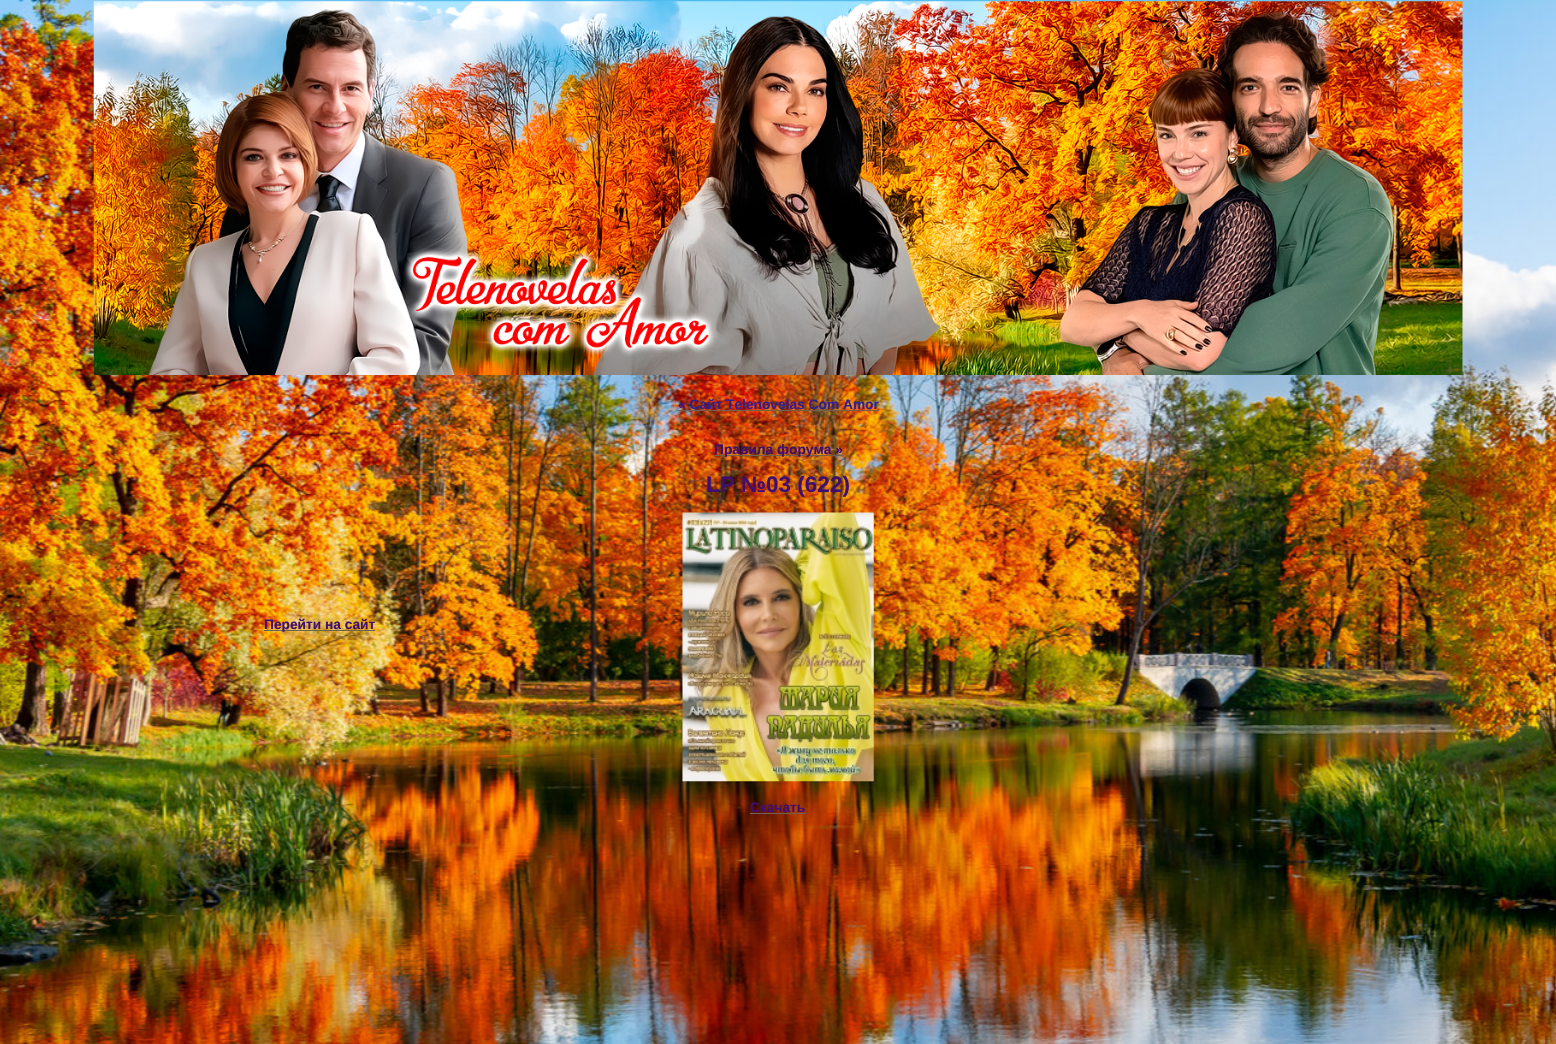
#include "include/core/SkBlurTypes.h"
#include "include/core/SkCanvas.h"
#include "include/core/SkData.h"
#include "include/core/SkFont.h"
#include "include/core/SkFontMgr.h"
#include "include/core/SkImage.h"
#include "include/core/SkMaskFilter.h"
#include "include/core/SkPaint.h"
#include "include/core/SkPathBuilder.h"
#include "include/core/SkTextBlob.h"
#include "include/effects/SkDashPathEffect.h"
#include "include/effects/SkGradientShader.h"
#include "include/utils/SkParsePath.h"

extern sk_sp<SkFontMgr> fontMgr;

void draw(SkCanvas* canvas) {
  SkPaint p;
  p.setAntiAlias(true);
  canvas->clear(SK_ColorWHITE);
  canvas->drawImageRect(SkImages::DeferredFromEncodedData(SkData::MakeFromFileName("images/1.png")), SkRect::MakeLTRB(0, 0, 1556, 38), SkSamplingOptions());
  canvas->drawImageRect(SkImages::DeferredFromEncodedData(SkData::MakeFromFileName("images/2.png")), SkRect::MakeLTRB(0, 38, 1556, 1044), SkSamplingOptions());
  canvas->drawImageRect(SkImages::DeferredFromEncodedData(SkData::MakeFromFileName("images/3.png")), SkRect::MakeLTRB(93, 1, 1463, 375), SkSamplingOptions());
  p.setColor(SkColorSetRGB(110, 97, 79));
  canvas->drawRect(SkRect::MakeLTRB(264, 630, 375, 631), p);
  canvas->drawRect(SkRect::MakeLTRB(678, 410, 879, 411), p);
  canvas->drawRect(SkRect::MakeLTRB(714, 455, 843, 456), p);
  canvas->drawImageRect(SkImages::DeferredFromEncodedData(SkData::MakeFromFileName("images/4.png")), SkRect::MakeLTRB(682, 512, 874, 782), SkSamplingOptions());
  canvas->drawRect(SkRect::MakeLTRB(750, 813, 806, 814), p);
  SkFont font1(fontMgr->matchFamilyStyle("Liberation Sans", SkFontStyle::Bold()), 13.75f);
  font1.setSubpixel(true);
  p.setColor(SkColorSetRGB(63, 14, 113));
  canvas->drawString("Перейти на сайт", 264, 629, font1, p);
  p.setColor(SkColorSetRGB(49, 30, 144));
  canvas->drawString("« Сайт Telenovelas Com Amor", 678, 409, font1, p);
  p.setColor(SkColorSetRGB(63, 14, 113));
  canvas->drawString("Правила форума »", 714, 454, font1, p);
  SkFont font2(fontMgr->matchFamilyStyle("Liberation Sans", SkFontStyle::Bold()), 22.5f);
  font2.setSubpixel(true);
  canvas->drawString("LP №03 (622)", 706, 492, font2, p);
  canvas->drawString("Скачать", 750, 812, font1, p);
}
